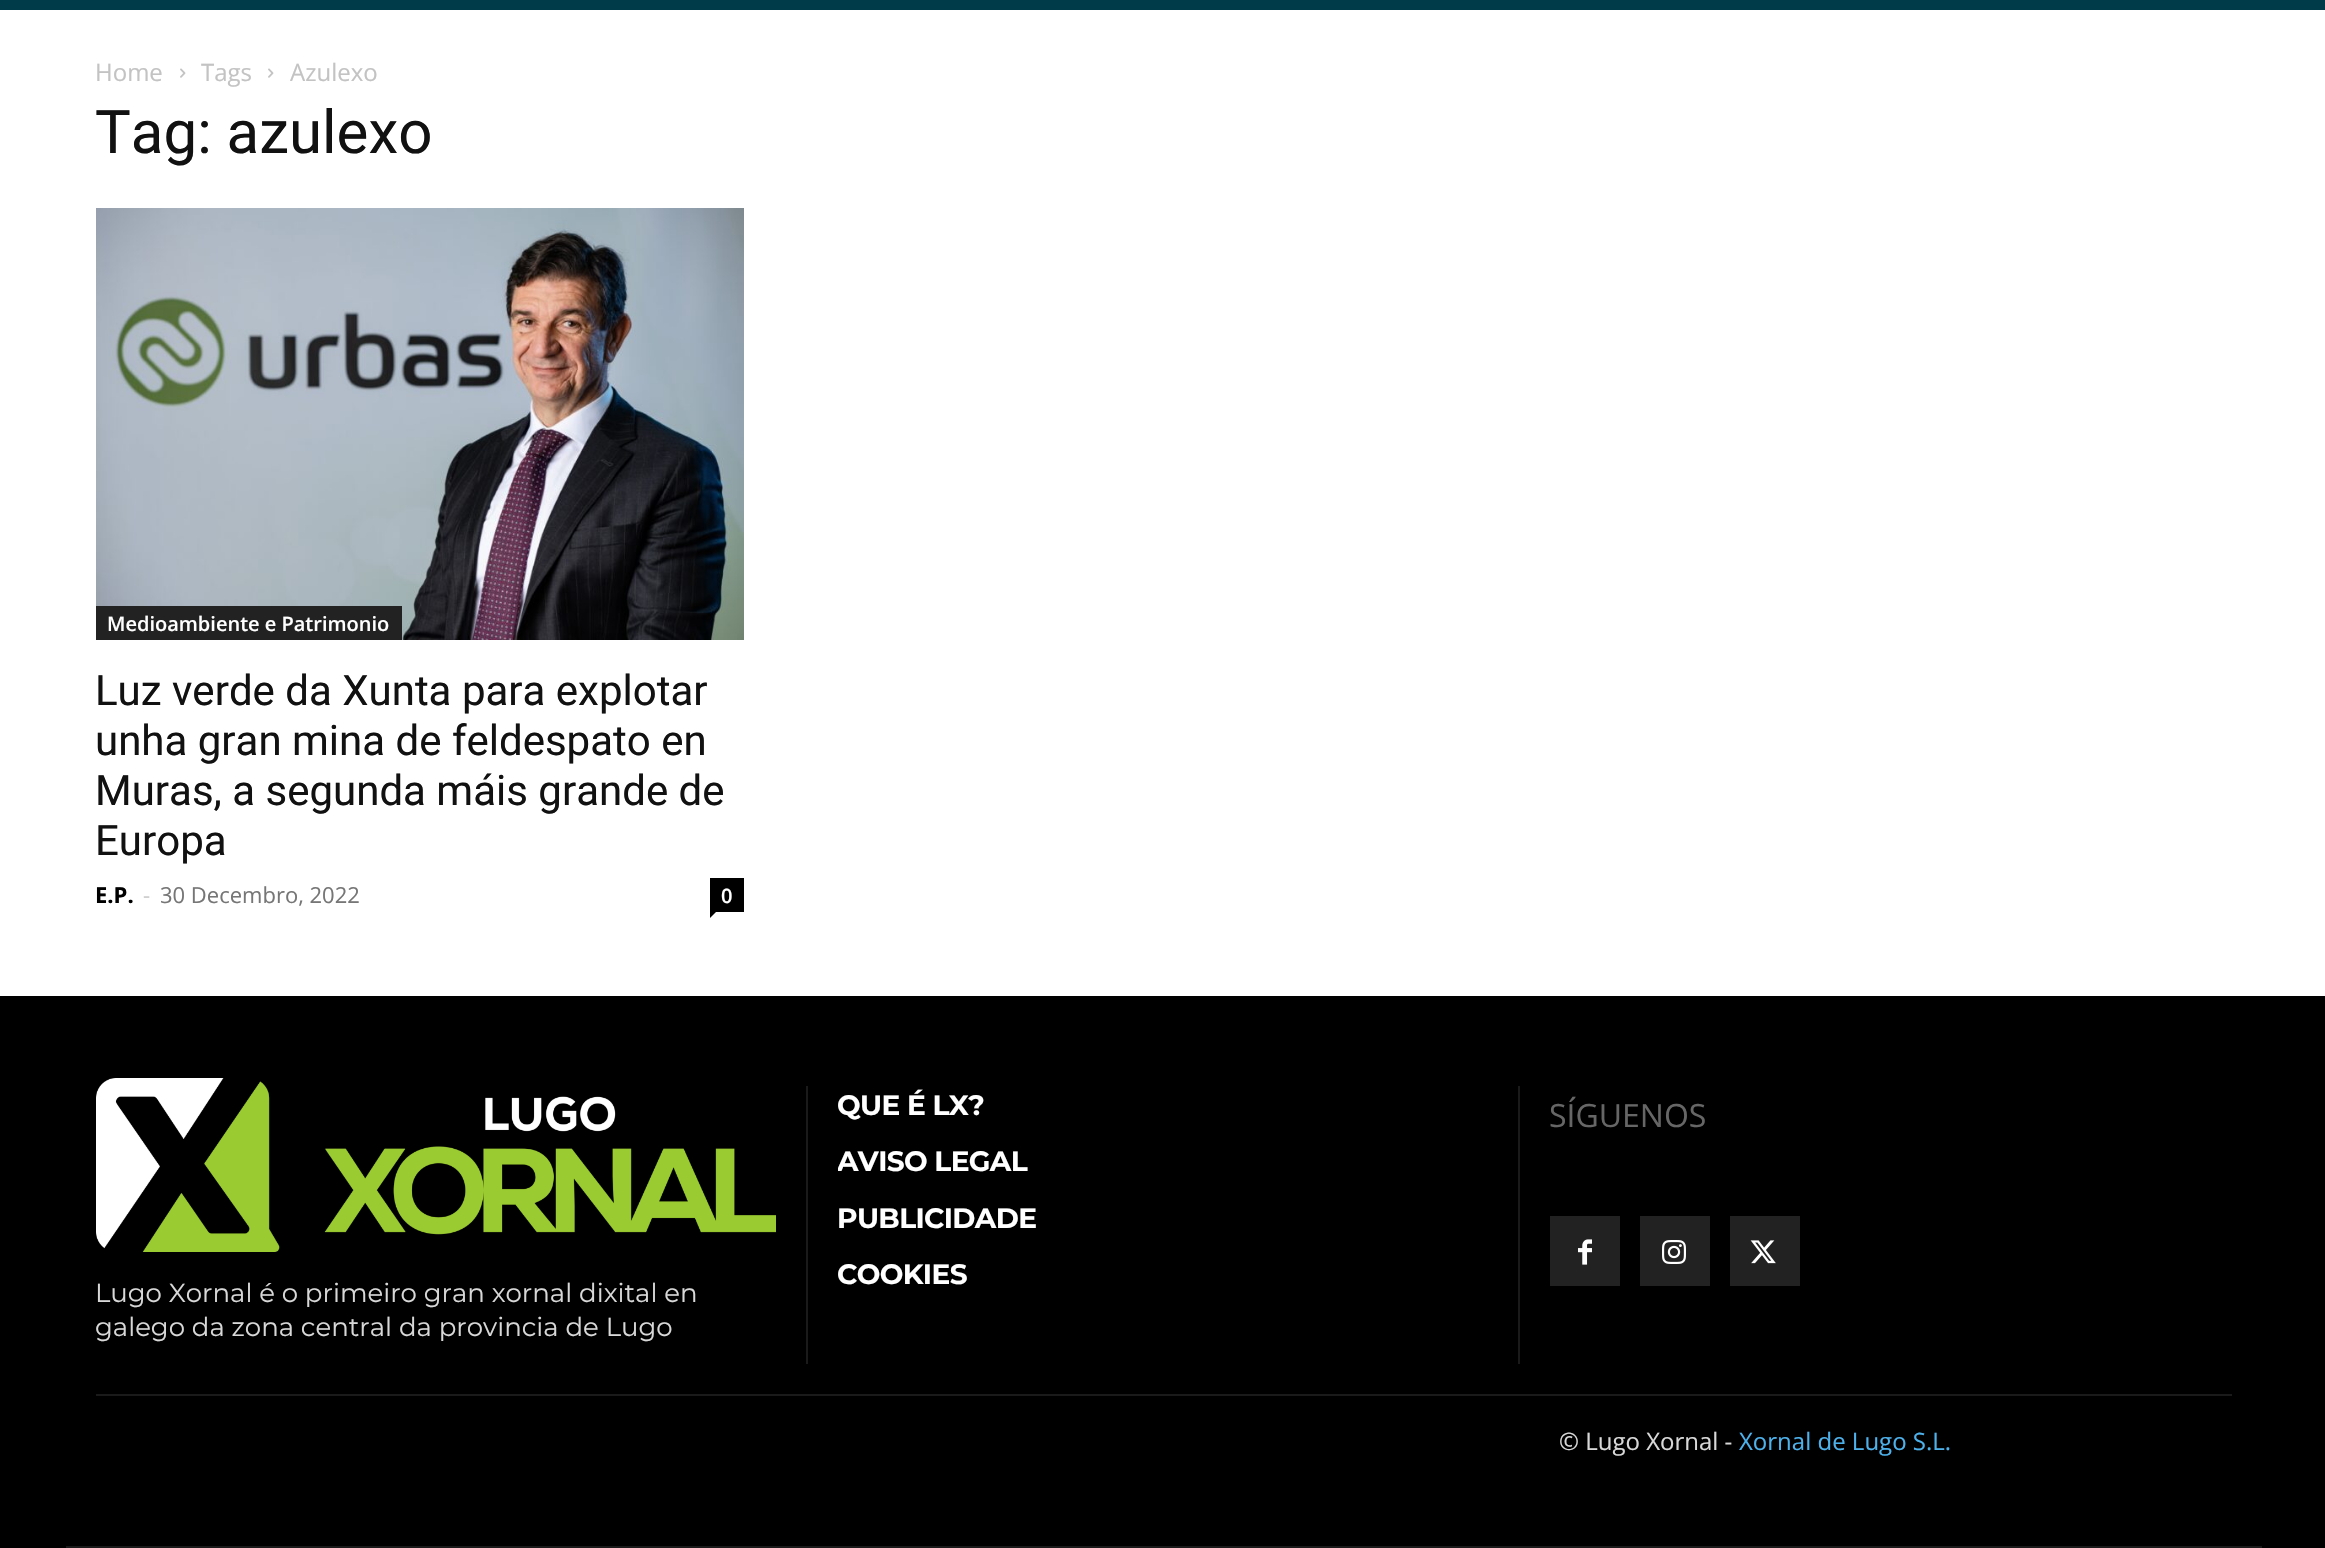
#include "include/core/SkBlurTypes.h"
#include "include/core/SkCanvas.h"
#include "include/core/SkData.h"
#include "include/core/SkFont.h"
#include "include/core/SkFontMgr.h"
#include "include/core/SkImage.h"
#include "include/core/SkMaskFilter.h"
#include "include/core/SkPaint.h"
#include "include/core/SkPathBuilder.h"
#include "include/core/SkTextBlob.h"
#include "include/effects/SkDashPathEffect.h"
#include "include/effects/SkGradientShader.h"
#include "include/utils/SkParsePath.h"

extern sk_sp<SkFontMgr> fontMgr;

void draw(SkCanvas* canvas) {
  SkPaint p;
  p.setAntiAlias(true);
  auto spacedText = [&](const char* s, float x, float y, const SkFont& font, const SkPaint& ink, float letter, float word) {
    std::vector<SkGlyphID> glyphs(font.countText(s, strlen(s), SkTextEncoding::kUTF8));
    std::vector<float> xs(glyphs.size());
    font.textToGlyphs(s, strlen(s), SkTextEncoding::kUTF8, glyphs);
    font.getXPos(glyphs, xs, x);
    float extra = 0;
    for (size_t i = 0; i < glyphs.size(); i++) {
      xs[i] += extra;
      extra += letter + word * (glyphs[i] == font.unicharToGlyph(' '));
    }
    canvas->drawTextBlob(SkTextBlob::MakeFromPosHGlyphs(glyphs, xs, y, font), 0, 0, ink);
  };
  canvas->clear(SK_ColorWHITE);
  p.setColor(SkColorSetRGB(0, 59, 73));
  canvas->drawRect(SkRect::MakeLTRB(0, 0, 2325, 10), p);
  canvas->drawImageRect(SkImages::DeferredFromEncodedData(SkData::MakeFromFileName("images/1.png")), SkRect::MakeLTRB(180, 68, 186, 78), SkSamplingOptions());
  canvas->drawImageRect(SkImages::DeferredFromEncodedData(SkData::MakeFromFileName("images/1.png")), SkRect::MakeLTRB(268, 68, 274, 78), SkSamplingOptions());
  canvas->drawImageRect(SkImages::DeferredFromEncodedData(SkData::MakeFromFileName("images/2.png")), SkRect::MakeLTRB(96, 208, 744, 640), SkSamplingOptions());
  p.setColor(SkColorSetRGB(34, 34, 34));
  canvas->drawRect(SkRect::MakeLTRB(96, 606, 402, 640), p);
  p.setColor(SK_ColorBLACK);
  canvas->drawRect(SkRect::MakeLTRB(710, 878, 744, 912), p);
  canvas->drawPath(SkPathBuilder().moveTo(710, 912).lineTo(716, 912).lineTo(710, 918).close().detach(), p);
  canvas->drawRect(SkRect::MakeLTRB(0, 996, 2325, 1548), p);
  p.setColor(SkColorSetRGB(26, 26, 26));
  canvas->drawRect(SkRect::MakeLTRB(96, 1394, 2232, 1396), p);
  canvas->drawRect(SkRect::MakeLTRB(1518, 1086, 1520, 1364), p);
  p.setColor(SkColorSetRGB(34, 34, 34));
  canvas->drawRect(SkRect::MakeLTRB(1550, 1216, 1620, 1286), p);
  canvas->drawImageRect(SkImages::DeferredFromEncodedData(SkData::MakeFromFileName("images/3.png")), SkRect::MakeLTRB(1578, 1239, 1592, 1265), SkSamplingOptions());
  canvas->drawRect(SkRect::MakeLTRB(1640, 1216, 1710, 1286), p);
  canvas->drawImageRect(SkImages::DeferredFromEncodedData(SkData::MakeFromFileName("images/4.png")), SkRect::MakeLTRB(1662, 1240, 1686, 1264), SkSamplingOptions());
  canvas->drawRect(SkRect::MakeLTRB(1730, 1216, 1800, 1286), p);
  canvas->drawImageRect(SkImages::DeferredFromEncodedData(SkData::MakeFromFileName("images/5.png")), SkRect::MakeLTRB(1750, 1240, 1776, 1264), SkSamplingOptions());
  p.setColor(SkColorSetRGB(26, 26, 26));
  canvas->drawRect(SkRect::MakeLTRB(806, 1086, 808, 1364), p);
  canvas->drawImageRect(SkImages::DeferredFromEncodedData(SkData::MakeFromFileName("images/6.png")), SkRect::MakeLTRB(96, 1078, 776, 1252), SkSamplingOptions());
  canvas->drawRect(SkRect::MakeLTRB(66, 1546, 2262, 1548), p);
  SkFont font1(fontMgr->matchFamilyStyle("Open Sans", SkFontStyle::Normal()), 24);
  font1.setSubpixel(true);
  p.setColor(SkColorSetRGB(195, 195, 195));
  canvas->drawString("Home", 95, 81, font1, p);
  canvas->drawString("Tags", 201, 81, font1, p);
  canvas->drawString("Azulexo", 290, 81, font1, p);
  SkFont font2(fontMgr->matchFamilyStyle("Roboto", SkFontStyle::Normal()), 60);
  font2.setSubpixel(true);
  p.setColor(SkColorSetRGB(17, 17, 17));
  canvas->drawString("Tag: azulexo", 95, 153, font2, p);
  SkFont font3(fontMgr->matchFamilyStyle("Open Sans", SkFontStyle(600, SkFontStyle::kNormal_Width, SkFontStyle::kUpright_Slant)), 20);
  font3.setSubpixel(true);
  p.setColor(SK_ColorWHITE);
  canvas->drawString("Medioambiente e Patrimonio", 107, 631, font3, p);
  SkFont font4(fontMgr->matchFamilyStyle("Roboto", SkFontStyle::Normal()), 42);
  font4.setSubpixel(true);
  p.setColor(SkColorSetRGB(17, 17, 17));
  canvas->drawString("Luz verde da Xunta para explotar", 95, 705, font4, p);
  canvas->drawString("unha gran mina de feldespato en", 95, 755, font4, p);
  canvas->drawString("Muras, a segunda máis grande de", 95, 805, font4, p);
  canvas->drawString("Europa", 95, 855, font4, p);
  SkFont font5(fontMgr->matchFamilyStyle("Open Sans", SkFontStyle::Bold()), 22);
  font5.setSubpixel(true);
  p.setColor(SK_ColorBLACK);
  canvas->drawString("E.P.", 95, 903, font5, p);
  SkFont font6(fontMgr->matchFamilyStyle("Open Sans", SkFontStyle::Normal()), 22);
  font6.setSubpixel(true);
  p.setColor(SkColorSetRGB(204, 204, 204));
  canvas->drawString("-", 143, 903, font6, p);
  p.setColor(SkColorSetRGB(118, 118, 118));
  canvas->drawString("30 Decembro, 2022", 160, 903, font6, p);
  p.setColor(SK_ColorWHITE);
  canvas->drawString("0", 721, 903, font3, p);
  SkFont font7(fontMgr->matchFamilyStyle("Montserrat", SkFontStyle::Bold()), 28);
  font7.setSubpixel(true);
  spacedText("QUE É LX?", 837, 1115, font7, p, -0.6f, 0);
  canvas->save();
  canvas->clipRect(SkRect::MakeLTRB(838, 1086, 1488, 1292));
  spacedText("AVISO LEGAL", 837, 1171, font7, p, -0.6f, 0);
  canvas->restore();
  spacedText("PUBLICIDADE", 837, 1228, font7, p, -0.6f, 0);
  spacedText("COOKIES", 837, 1284, font7, p, -0.6f, 0);
  SkFont font8(fontMgr->matchFamilyStyle("Open Sans", SkFontStyle::Normal()), 32);
  font8.setSubpixel(true);
  p.setColor(SkColorSetRGB(102, 102, 102));
  canvas->drawString("SÍGUENOS", 1549, 1127, font8, p);
  SkFont font9(fontMgr->matchFamilyStyle("Montserrat", SkFontStyle::Normal()), 26);
  font9.setSubpixel(true);
  p.setColor(SkColorSetRGB(216, 216, 216));
  canvas->drawString("Lugo Xornal é o primeiro gran xornal dixital en", 95, 1302, font9, p);
  canvas->drawString("galego da zona central da provincia de Lugo", 95, 1336, font9, p);
  canvas->drawString("© Lugo Xornal -", 1559, 1450, font1, p);
  p.setColor(SkColorSetRGB(77, 178, 236));
  canvas->drawString("Xornal de Lugo S.L.", 1739, 1450, font1, p);
}
